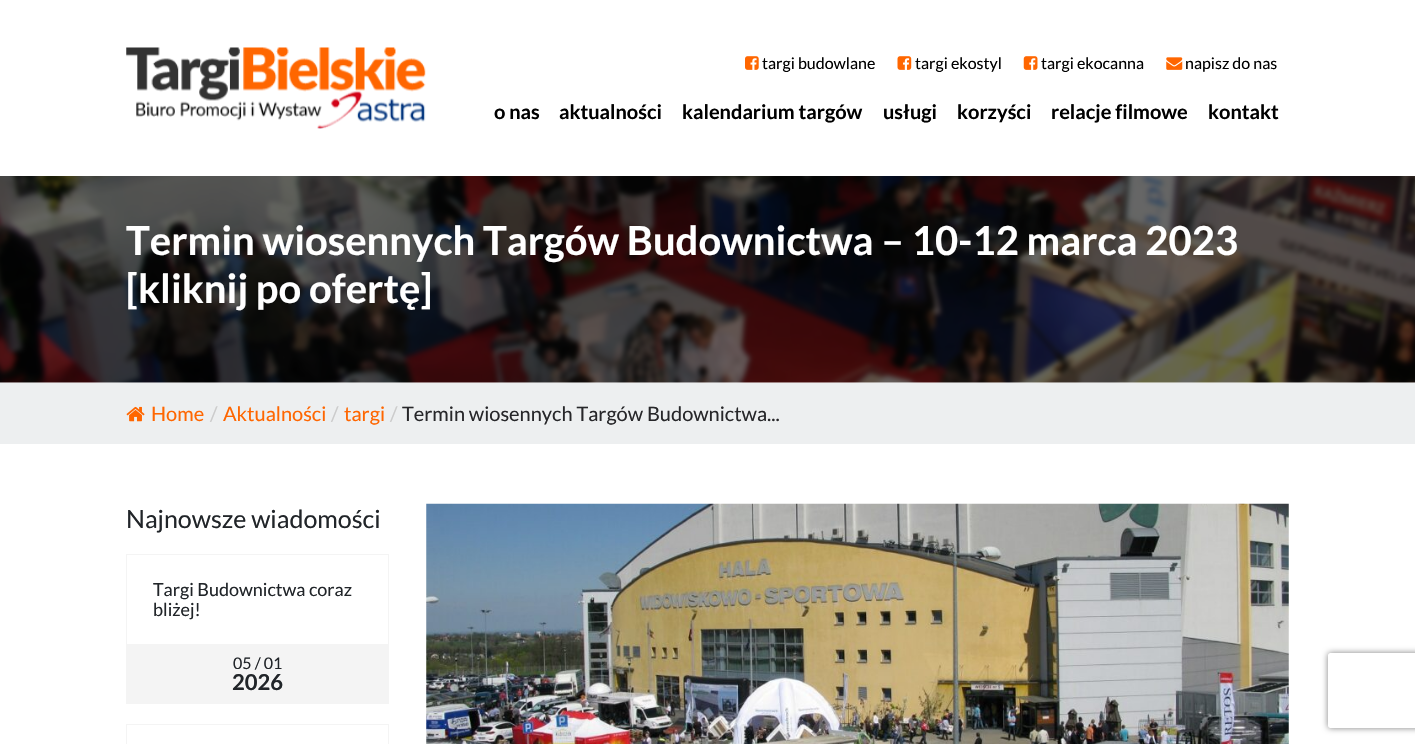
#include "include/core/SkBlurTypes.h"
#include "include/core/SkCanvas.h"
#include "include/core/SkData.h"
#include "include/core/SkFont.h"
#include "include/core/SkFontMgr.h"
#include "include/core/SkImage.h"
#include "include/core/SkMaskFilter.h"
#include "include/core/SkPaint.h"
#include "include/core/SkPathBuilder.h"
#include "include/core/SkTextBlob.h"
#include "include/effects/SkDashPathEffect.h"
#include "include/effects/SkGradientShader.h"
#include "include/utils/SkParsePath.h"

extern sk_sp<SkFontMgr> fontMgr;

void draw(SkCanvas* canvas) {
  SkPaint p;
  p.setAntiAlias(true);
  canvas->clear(SK_ColorWHITE);
  canvas->drawImageRect(SkImages::DeferredFromEncodedData(SkData::MakeFromFileName("images/1.png")), SkRect::MakeLTRB(126, 47, 426, 129), SkSamplingOptions());
  canvas->drawImageRect(SkImages::DeferredFromEncodedData(SkData::MakeFromFileName("images/2.png")), SkRect::MakeLTRB(745, 56, 759, 70), SkSamplingOptions());
  canvas->drawImageRect(SkImages::DeferredFromEncodedData(SkData::MakeFromFileName("images/3.png")), SkRect::MakeLTRB(897, 56, 912, 70), SkSamplingOptions());
  canvas->drawImageRect(SkImages::DeferredFromEncodedData(SkData::MakeFromFileName("images/4.png")), SkRect::MakeLTRB(1023, 56, 1038, 70), SkSamplingOptions());
  canvas->drawImageRect(SkImages::DeferredFromEncodedData(SkData::MakeFromFileName("images/5.png")), SkRect::MakeLTRB(1166, 57, 1183, 70), SkSamplingOptions());
  canvas->drawImageRect(SkImages::DeferredFromEncodedData(SkData::MakeFromFileName("images/6.png")), SkRect::MakeLTRB(0, 176, 1415, 383), SkSamplingOptions());
  p.setColor(SkColorSetRGB(237, 239, 240));
  canvas->drawRect(SkRect::MakeLTRB(0, 383, 1415, 444), p);
  canvas->drawImageRect(SkImages::DeferredFromEncodedData(SkData::MakeFromFileName("images/7.png")), SkRect::MakeLTRB(126, 406, 145, 422), SkSamplingOptions());
  p.setStyle(SkPaint::kStroke_Style);
  p.setStrokeWidth(1);
  p.setColor(SkColorSetRGB(244, 244, 244));
  canvas->drawRect(SkRect::MakeLTRB(126.5f, 554.5f, 388.5f, 644.5f), p);
  p.setStyle(SkPaint::kFill_Style);
  canvas->drawRect(SkRect::MakeLTRB(126, 645, 389, 704), p);
  p.setStyle(SkPaint::kStroke_Style);
  canvas->drawRect(SkRect::MakeLTRB(126.5f, 724.5f, 388.5f, 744.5f), p);
  canvas->drawImageRect(SkImages::DeferredFromEncodedData(SkData::MakeFromFileName("images/8.png")), SkRect::MakeLTRB(426, 503, 1289, 744), SkSamplingOptions());
  canvas->save();
  canvas->clipPath(SkPathBuilder(SkPathFillType::kEvenOdd).moveTo(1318, 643).lineTo(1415, 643).lineTo(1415, 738).lineTo(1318, 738).close().moveTo(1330.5f, 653).lineTo(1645.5f, 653).cubicTo(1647, 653, 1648, 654, 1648, 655.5f).lineTo(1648, 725.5f).cubicTo(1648, 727, 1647, 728, 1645.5f, 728).lineTo(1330.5f, 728).cubicTo(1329, 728, 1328, 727, 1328, 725.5f).lineTo(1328, 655.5f).cubicTo(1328, 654, 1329, 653, 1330.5f, 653).close().detach(), true);
  p.setStyle(SkPaint::kFill_Style);
  p.setColor(SkColorSetRGB(128, 128, 128));
  p.setMaskFilter(SkMaskFilter::MakeBlur(kNormal_SkBlurStyle, 3));
  canvas->drawRoundRect(SkRect::MakeLTRB(1328, 653, 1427, 728), 2.5f, 2.5f, p);
  p.setMaskFilter(nullptr);
  canvas->restore();
  SkFont font1(fontMgr->matchFamilyStyle("Lato", SkFontStyle::Normal()), 16);
  font1.setSubpixel(true);
  p.setColor(SK_ColorBLACK);
  canvas->drawString("targi budowlane", 762, 69, font1, p);
  canvas->drawString("targi ekostyl", 915, 69, font1, p);
  canvas->drawString("targi ekocanna", 1041, 69, font1, p);
  canvas->drawString("napisz do nas", 1185, 69, font1, p);
  SkFont font2(fontMgr->matchFamilyStyle("Lato", SkFontStyle::Bold()), 20);
  font2.setSubpixel(true);
  canvas->drawString("o nas", 494, 119, font2, p);
  canvas->drawString("aktualności", 559, 119, font2, p);
  canvas->drawString("kalendarium targów", 682, 119, font2, p);
  canvas->drawString("usługi", 883, 119, font2, p);
  canvas->drawString("korzyści", 957, 119, font2, p);
  canvas->drawString("relacje filmowe", 1051, 119, font2, p);
  canvas->drawString("kontakt", 1208, 119, font2, p);
  SkFont font3(fontMgr->matchFamilyStyle("Lato", SkFontStyle::Bold()), 40);
  font3.setSubpixel(true);
  p.setColor(SK_ColorWHITE);
  canvas->drawString("Termin wiosennych Targów Budownictwa – 10-12 marca 2023", 126, 255, font3, p);
  canvas->drawString("[kliknij po ofertę]", 126, 303, font3, p);
  SkFont font4(fontMgr->matchFamilyStyle("Lato", SkFontStyle::Normal()), 20);
  font4.setSubpixel(true);
  p.setColor(SkColorSetRGB(255, 102, 0));
  canvas->drawString("Home", 151, 421, font4, p);
  p.setColor(SkColorSetRGB(204, 204, 204));
  canvas->drawString("/", 210, 421, font4, p);
  p.setColor(SkColorSetRGB(255, 102, 0));
  canvas->drawString("Aktualności", 223, 421, font4, p);
  p.setColor(SkColorSetRGB(204, 204, 204));
  canvas->drawString("/", 331, 421, font4, p);
  p.setColor(SkColorSetRGB(255, 102, 0));
  canvas->drawString("targi", 344, 421, font4, p);
  p.setColor(SkColorSetRGB(204, 204, 204));
  canvas->drawString("/", 390, 421, font4, p);
  p.setColor(SkColorSetRGB(39, 39, 42));
  canvas->drawString("Termin wiosennych Targów Budownictwa...", 402, 421, font4, p);
  SkFont font5(fontMgr->matchFamilyStyle("Lato", SkFontStyle::Normal()), 25);
  font5.setSubpixel(true);
  p.setColor(SkColorSetRGB(33, 37, 41));
  canvas->drawString("Najnowsze wiadomości", 126, 528, font5, p);
  SkFont font6(fontMgr->matchFamilyStyle("Lato", SkFontStyle::Normal()), 18);
  font6.setSubpixel(true);
  canvas->drawString("Targi Budownictwa coraz", 153, 596, font6, p);
  canvas->drawString("bliżej!", 153, 616, font6, p);
  canvas->drawString("05 / 01", 233, 669, font1, p);
  SkFont font7(fontMgr->matchFamilyStyle("Lato", SkFontStyle::Bold()), 22);
  font7.setSubpixel(true);
  canvas->drawString("2026", 232, 690, font7, p);
}
